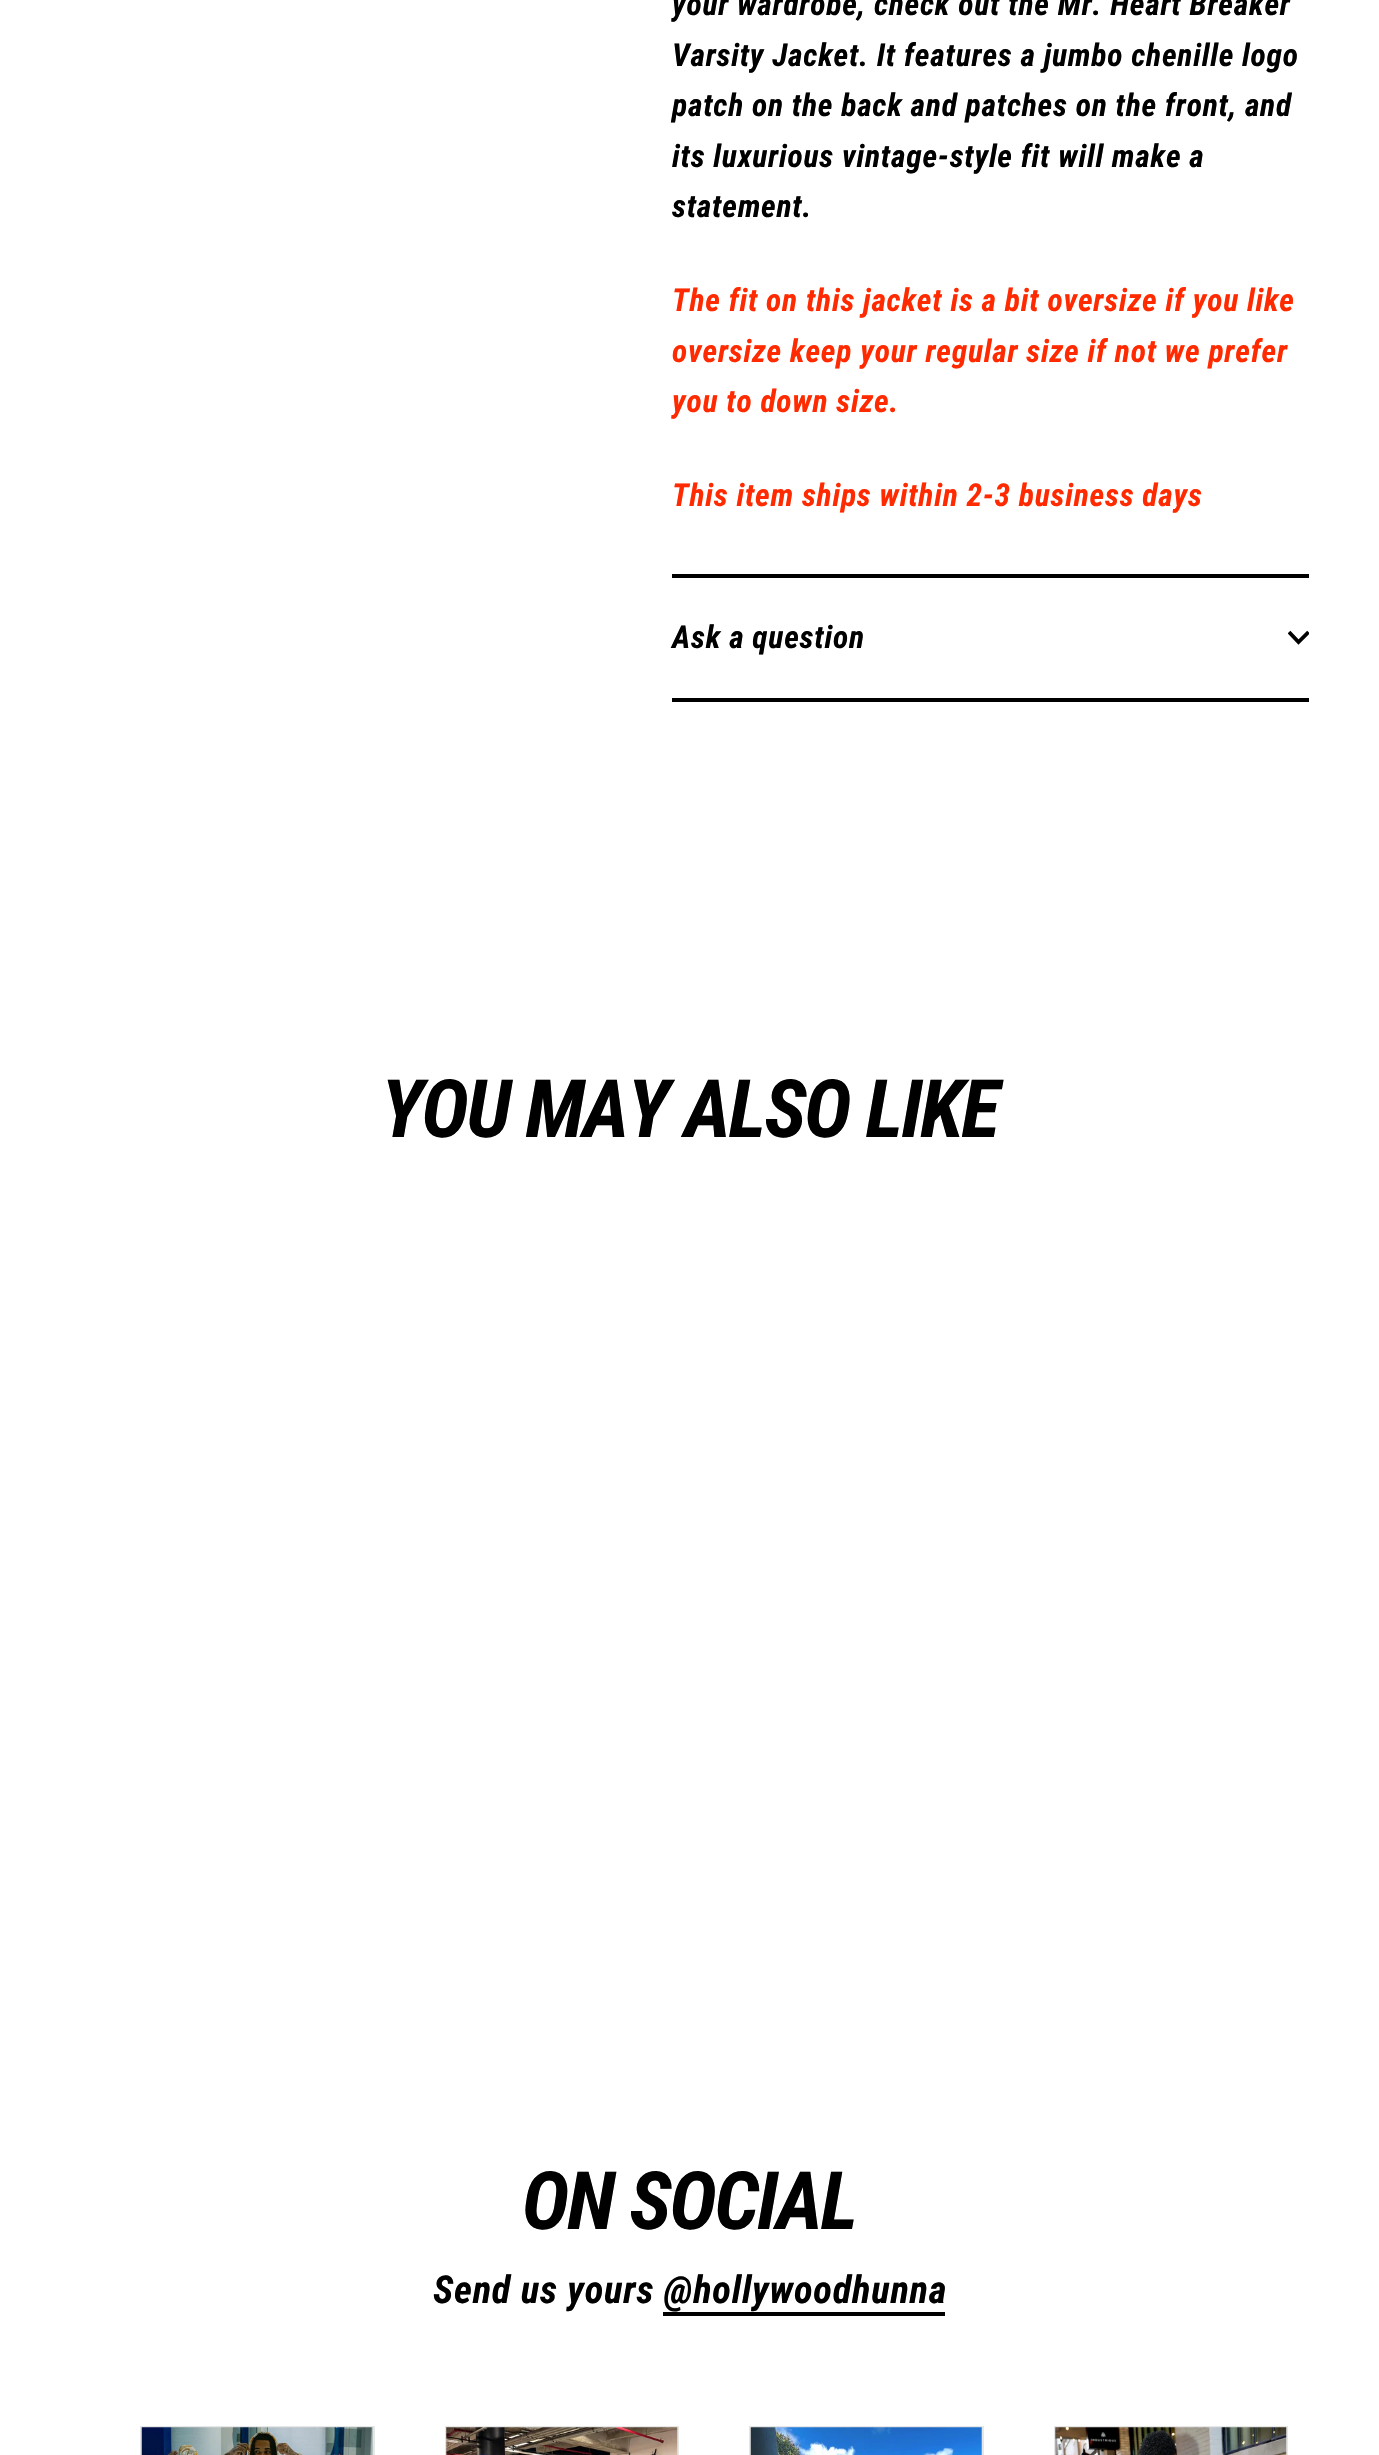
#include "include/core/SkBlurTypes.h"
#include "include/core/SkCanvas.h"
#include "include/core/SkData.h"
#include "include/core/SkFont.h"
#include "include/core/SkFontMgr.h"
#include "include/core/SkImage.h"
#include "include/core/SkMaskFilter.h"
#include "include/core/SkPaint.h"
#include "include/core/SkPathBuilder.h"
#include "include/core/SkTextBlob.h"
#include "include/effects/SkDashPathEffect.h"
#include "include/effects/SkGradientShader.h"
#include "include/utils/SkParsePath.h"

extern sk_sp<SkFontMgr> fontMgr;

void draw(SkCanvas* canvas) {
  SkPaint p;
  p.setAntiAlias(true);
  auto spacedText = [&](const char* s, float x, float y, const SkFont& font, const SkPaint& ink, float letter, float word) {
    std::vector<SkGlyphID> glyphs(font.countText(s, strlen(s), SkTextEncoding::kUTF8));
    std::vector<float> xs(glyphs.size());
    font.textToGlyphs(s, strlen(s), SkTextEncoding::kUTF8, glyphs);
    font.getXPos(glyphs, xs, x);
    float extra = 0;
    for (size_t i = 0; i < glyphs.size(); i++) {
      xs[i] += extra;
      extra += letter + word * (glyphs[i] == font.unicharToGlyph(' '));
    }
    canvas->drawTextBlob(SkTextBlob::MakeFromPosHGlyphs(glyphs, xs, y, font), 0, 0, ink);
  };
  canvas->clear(SK_ColorWHITE);
  p.setColor(SK_ColorBLACK);
  canvas->drawRect(SkRect::MakeLTRB(672, 698, 1309, 702), p);
  canvas->drawRect(SkRect::MakeLTRB(672, 574, 1309, 578), p);
  canvas->save();
  canvas->clipRect(SkRect::MakeLTRB(1288, 627, 1309, 648));
  p.setStyle(SkPaint::kStroke_Style);
  p.setStrokeWidth(3.8f);
  canvas->drawPath(SkPathBuilder().moveTo(1289, 632).lineTo(1298.5f, 642).lineTo(1308.5f, 632).detach(), p);
  canvas->restore();
  p.setStyle(SkPaint::kFill_Style);
  canvas->drawRect(SkRect::MakeLTRB(663, 2312, 945, 2316), p);
  p.setStyle(SkPaint::kStroke_Style);
  p.setStrokeWidth(2);
  p.setColor(SkColorSetRGB(230, 230, 230));
  canvas->drawRect(SkRect::MakeLTRB(141, 2427, 374, 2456), p);
  canvas->drawImageRect(SkImages::DeferredFromEncodedData(SkData::MakeFromFileName("images/1.png")), SkRect::MakeLTRB(141, 2427, 373, 2455), SkSamplingOptions());
  canvas->drawRect(SkRect::MakeLTRB(446, 2427, 678, 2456), p);
  canvas->drawImageRect(SkImages::DeferredFromEncodedData(SkData::MakeFromFileName("images/2.png")), SkRect::MakeLTRB(446, 2427, 678, 2455), SkSamplingOptions());
  canvas->drawRect(SkRect::MakeLTRB(750, 2427, 983, 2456), p);
  canvas->drawImageRect(SkImages::DeferredFromEncodedData(SkData::MakeFromFileName("images/3.png")), SkRect::MakeLTRB(750, 2427, 982, 2455), SkSamplingOptions());
  canvas->drawRect(SkRect::MakeLTRB(1055, 2427, 1287, 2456), p);
  canvas->drawImageRect(SkImages::DeferredFromEncodedData(SkData::MakeFromFileName("images/4.png")), SkRect::MakeLTRB(1055, 2427, 1287, 2455), SkSamplingOptions());
  SkFont font1(fontMgr->matchFamilyStyle("Roboto Condensed", SkFontStyle::BoldItalic()), 31.5f);
  font1.setSubpixel(true);
  p.setStyle(SkPaint::kFill_Style);
  p.setColor(SK_ColorBLACK);
  spacedText("your wardrobe, check out the Mr. Heart Breaker", 672, 15, font1, p, 0.8f, 0);
  spacedText("Varsity Jacket. It features a jumbo chenille logo", 672, 66, font1, p, 0.8f, 0);
  spacedText("patch on the back and patches on the front, and", 672, 116, font1, p, 0.8f, 0);
  spacedText("its luxurious vintage-style fit will make a", 672, 167, font1, p, 0.8f, 0);
  spacedText("statement.", 672, 217, font1, p, 0.8f, 0);
  p.setColor(SkColorSetRGB(255, 42, 0));
  spacedText("The fit on this jacket is a bit oversize if you like", 672, 311, font1, p, 0.8f, 0);
  spacedText("oversize keep your regular size if not we prefer", 672, 362, font1, p, 0.8f, 0);
  spacedText("you to down size.", 672, 412, font1, p, 0.8f, 0);
  spacedText("This item ships within 2-3 business days", 672, 506, font1, p, 0.8f, 0);
  p.setColor(SK_ColorBLACK);
  spacedText("Ask a question", 672, 648, font1, p, 0.8f, 0);
  SkFont font2(fontMgr->matchFamilyStyle("Roboto Condensed", SkFontStyle::BoldItalic()), 80.5f);
  font2.setSubpixel(true);
  spacedText("YOU MAY ALSO LIKE", 381, 1137, font2, p, -2, 0);
  spacedText("ON SOCIAL", 522, 2229, font2, p, -2, 0);
  SkFont font3(fontMgr->matchFamilyStyle("Roboto Condensed", SkFontStyle::BoldItalic()), 38.5f);
  font3.setSubpixel(true);
  spacedText("Send us yours @hollywoodhunna", 433, 2303, font3, p, 0.8f, 0);
}
